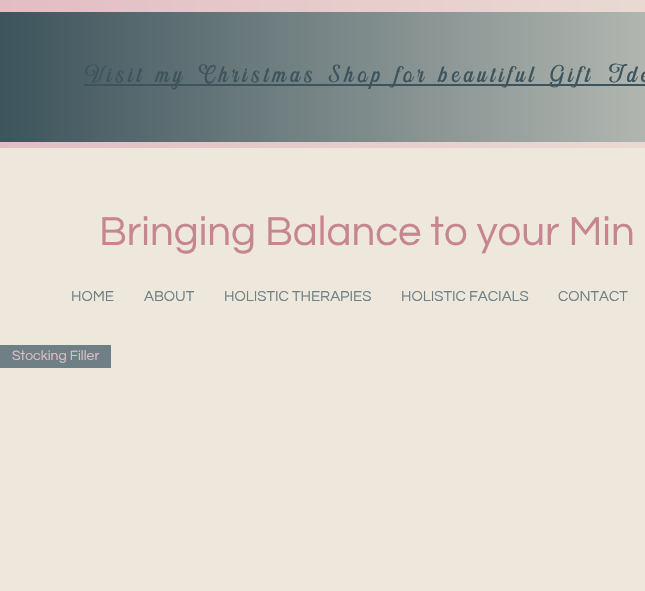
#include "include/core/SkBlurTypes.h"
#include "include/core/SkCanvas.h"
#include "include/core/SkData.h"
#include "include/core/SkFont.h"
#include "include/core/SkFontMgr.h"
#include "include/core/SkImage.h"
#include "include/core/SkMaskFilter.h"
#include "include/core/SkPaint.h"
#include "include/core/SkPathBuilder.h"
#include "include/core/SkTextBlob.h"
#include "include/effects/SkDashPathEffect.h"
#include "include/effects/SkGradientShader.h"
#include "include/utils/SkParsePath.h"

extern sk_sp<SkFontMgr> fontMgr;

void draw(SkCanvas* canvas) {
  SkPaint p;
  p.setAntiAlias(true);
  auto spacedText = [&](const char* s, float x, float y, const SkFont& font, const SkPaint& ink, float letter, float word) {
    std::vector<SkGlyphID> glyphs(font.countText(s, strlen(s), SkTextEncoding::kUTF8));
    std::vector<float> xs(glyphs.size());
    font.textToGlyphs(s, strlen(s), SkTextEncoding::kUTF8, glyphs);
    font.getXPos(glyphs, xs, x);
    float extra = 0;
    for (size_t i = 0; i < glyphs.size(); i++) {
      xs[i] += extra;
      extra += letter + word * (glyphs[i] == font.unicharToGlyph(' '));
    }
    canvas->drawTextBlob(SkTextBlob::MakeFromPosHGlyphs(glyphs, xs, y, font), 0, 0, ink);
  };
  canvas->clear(SkColorSetRGB(237, 232, 219));
  {
    const SkColor colors[] = {SkColorSetRGB(227, 189, 196), SkColorSetRGB(237, 232, 219)};
    const float stops[] = {0, 1};
    const SkPoint ends[] = {{0, 74}, {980, 74}};
    p.setShader(SkGradientShader::MakeLinear(ends, colors, stops, 2, SkTileMode::kClamp));
    p.setAlpha(255);
  }
  canvas->drawRect(SkRect::MakeLTRB(0, 0, 645, 148), p);
  {
    const SkColor colors[] = {SkColorSetRGB(61, 84, 92), SkColorSetRGB(237, 232, 219)};
    const float stops[] = {0, 1};
    const SkPoint ends[] = {{0, 77}, {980, 77}};
    p.setShader(SkGradientShader::MakeLinear(ends, colors, stops, 2, SkTileMode::kClamp));
    p.setAlpha(255);
  }
  canvas->drawRect(SkRect::MakeLTRB(0, 12, 645, 142), p);
  p.setShader(nullptr);
  p.setColor(SkColorSetRGB(61, 84, 92));
  canvas->drawRect(SkRect::MakeLTRB(84, 84, 645, 86), p);
  p.setColor(SkColorSetRGB(110, 127, 133));
  canvas->drawRect(SkRect::MakeLTRB(0, 345, 111, 368), p);
  SkFont font1(fontMgr->matchFamilyStyle("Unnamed", SkFontStyle::Normal()), 28);
  font1.setSubpixel(true);
  p.setColor(SkColorSetRGB(61, 84, 92));
  spacedText("Visit my Christmas Shop for beautiful Gift Ide", 84, 82, font1, p, 4.2f, 0);
  SkFont font2(fontMgr->matchFamilyStyle("Questrial", SkFontStyle::Normal()), 42);
  font2.setSubpixel(true);
  p.setColor(SkColorSetRGB(199, 133, 145));
  canvas->drawString("Bringing Balance to your Min", 99, 245, font2, p);
  SkFont font3(fontMgr->matchFamilyStyle("Questrial", SkFontStyle::Normal()), 15);
  font3.setSubpixel(true);
  p.setColor(SkColorSetRGB(110, 127, 133));
  canvas->drawString("HOME", 71, 301, font3, p);
  canvas->drawString("ABOUT", 144, 301, font3, p);
  canvas->drawString("HOLISTIC THERAPIES", 224, 301, font3, p);
  canvas->drawString("HOLISTIC FACIALS", 401, 301, font3, p);
  canvas->drawString("CONTACT", 558, 301, font3, p);
  SkFont font4(fontMgr->matchFamilyStyle("Questrial", SkFontStyle::Normal()), 14);
  font4.setSubpixel(true);
  p.setColor(SkColorSetRGB(227, 189, 196));
  canvas->drawString("Stocking Filler", 12, 360, font4, p);
}
